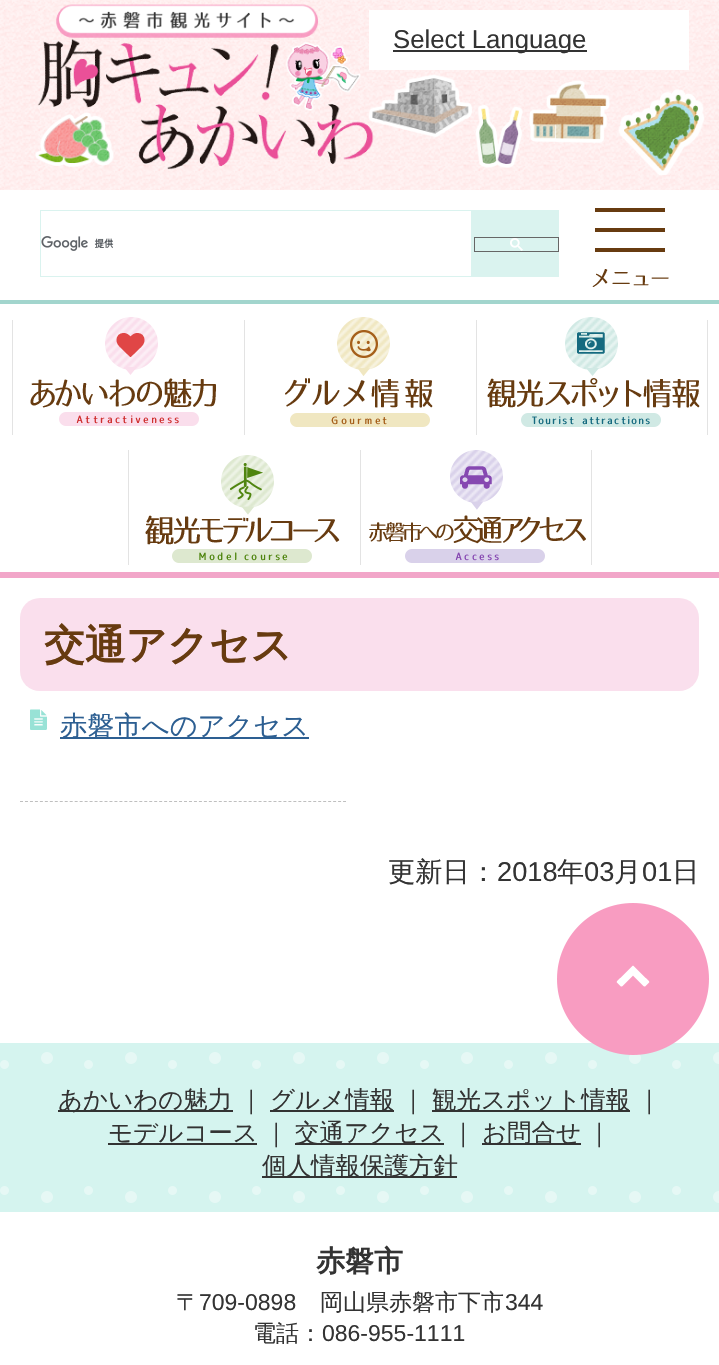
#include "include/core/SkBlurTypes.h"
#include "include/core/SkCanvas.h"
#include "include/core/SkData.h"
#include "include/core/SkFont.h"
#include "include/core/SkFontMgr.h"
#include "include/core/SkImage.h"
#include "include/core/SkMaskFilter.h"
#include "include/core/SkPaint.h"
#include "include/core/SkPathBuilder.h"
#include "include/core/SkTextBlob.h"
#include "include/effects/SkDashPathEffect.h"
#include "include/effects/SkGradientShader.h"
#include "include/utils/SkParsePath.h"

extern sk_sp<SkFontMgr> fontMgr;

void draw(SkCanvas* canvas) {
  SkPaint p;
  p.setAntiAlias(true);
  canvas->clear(SK_ColorWHITE);
  canvas->drawImageRect(SkImages::DeferredFromEncodedData(SkData::MakeFromFileName("images/1.png")), SkRect::MakeLTRB(0, 0, 719, 190), SkSamplingOptions());
  canvas->drawImageRect(SkImages::DeferredFromEncodedData(SkData::MakeFromFileName("images/2.png")), SkRect::MakeLTRB(35, 4, 705, 175), SkSamplingOptions());
  p.setColor(SK_ColorWHITE);
  canvas->drawRect(SkRect::MakeLTRB(369, 10, 689, 70), p);
  p.setColor(SkColorSetRGB(51, 51, 51));
  canvas->drawRect(SkRect::MakeLTRB(393, 50, 587, 52), p);
  p.setColor(SkColorSetRGB(162, 213, 205));
  canvas->drawRect(SkRect::MakeLTRB(0, 300, 719, 304), p);
  p.setStyle(SkPaint::kStroke_Style);
  p.setStrokeWidth(1);
  p.setColor(SkColorSetRGB(218, 243, 239));
  canvas->drawRect(SkRect::MakeLTRB(40.5f, 210.5f, 471.5f, 276.5f), p);
  canvas->drawImageRect(SkImages::DeferredFromEncodedData(SkData::MakeFromFileName("images/3.png")), SkRect::MakeLTRB(41, 236, 114, 251), SkSamplingOptions());
  p.setStyle(SkPaint::kFill_Style);
  canvas->drawRect(SkRect::MakeLTRB(472, 210, 559, 277), p);
  p.setStyle(SkPaint::kStroke_Style);
  p.setColor(SkColorSetRGB(102, 102, 102));
  canvas->drawRect(SkRect::MakeLTRB(474.5f, 237.5f, 558.5f, 251.5f), p);
  canvas->drawImageRect(SkImages::DeferredFromEncodedData(SkData::MakeFromFileName("images/4.png")), SkRect::MakeLTRB(510, 238, 523, 251), SkSamplingOptions());
  canvas->drawImageRect(SkImages::DeferredFromEncodedData(SkData::MakeFromFileName("images/5.png")), SkRect::MakeLTRB(592, 208, 669, 287), SkSamplingOptions());
  p.setStyle(SkPaint::kFill_Style);
  p.setColor(SkColorSetRGB(242, 166, 201));
  canvas->drawRect(SkRect::MakeLTRB(0, 572, 719, 578), p);
  canvas->drawImageRect(SkImages::DeferredFromEncodedData(SkData::MakeFromFileName("images/6.png")), SkRect::MakeLTRB(12, 317, 216, 435), SkSamplingOptions());
  canvas->drawImageRect(SkImages::DeferredFromEncodedData(SkData::MakeFromFileName("images/7.png")), SkRect::MakeLTRB(244, 317, 433, 435), SkSamplingOptions());
  canvas->drawImageRect(SkImages::DeferredFromEncodedData(SkData::MakeFromFileName("images/8.png")), SkRect::MakeLTRB(476, 317, 708, 435), SkSamplingOptions());
  canvas->drawImageRect(SkImages::DeferredFromEncodedData(SkData::MakeFromFileName("images/9.png")), SkRect::MakeLTRB(128, 450, 340, 565), SkSamplingOptions());
  canvas->drawImageRect(SkImages::DeferredFromEncodedData(SkData::MakeFromFileName("images/10.png")), SkRect::MakeLTRB(360, 450, 592, 565), SkSamplingOptions());
  p.setColor(SkColorSetRGB(250, 223, 237));
  canvas->drawRoundRect(SkRect::MakeLTRB(20, 598, 699, 691), 20, 20, p);
  canvas->drawImageRect(SkImages::DeferredFromEncodedData(SkData::MakeFromFileName("images/11.png")), SkRect::MakeLTRB(30, 709, 47, 730), SkSamplingOptions());
  p.setStyle(SkPaint::kStroke_Style);
  p.setColor(SkColorSetRGB(191, 191, 191));
  p.setPathEffect(SkDashPathEffect::Make({{3, 1.97f}}, 0));
  canvas->drawPath(SkPathBuilder().moveTo(20, 801.5f).lineTo(346, 801.5f).detach(), p);
  p.setPathEffect(nullptr);
  p.setStyle(SkPaint::kFill_Style);
  p.setColor(SkColorSetRGB(45, 95, 146));
  canvas->drawRect(SkRect::MakeLTRB(60, 737, 309, 739), p);
  p.setColor(SkColorSetRGB(213, 244, 239));
  canvas->drawRect(SkRect::MakeLTRB(0, 1043, 719, 1212), p);
  canvas->drawImageRect(SkImages::DeferredFromEncodedData(SkData::MakeFromFileName("images/13.png")), SkRect::MakeLTRB(0, 1052, 719, 1069), SkSamplingOptions());
  canvas->drawImageRect(SkImages::DeferredFromEncodedData(SkData::MakeFromFileName("images/12.png")), SkRect::MakeLTRB(557, 903, 709, 1055), SkSamplingOptions());
  canvas->drawImageRect(SkImages::DeferredFromEncodedData(SkData::MakeFromFileName("images/14.png")), SkRect::MakeLTRB(0, 1186, 719, 1203), SkSamplingOptions());
  p.setColor(SkColorSetRGB(51, 51, 51));
  canvas->drawRect(SkRect::MakeLTRB(58, 1110, 233, 1112), p);
  canvas->drawRect(SkRect::MakeLTRB(270, 1110, 394, 1112), p);
  canvas->drawRect(SkRect::MakeLTRB(432, 1110, 630, 1112), p);
  canvas->drawRect(SkRect::MakeLTRB(108, 1143, 257, 1145), p);
  canvas->drawRect(SkRect::MakeLTRB(295, 1143, 444, 1145), p);
  canvas->drawRect(SkRect::MakeLTRB(482, 1143, 581, 1145), p);
  canvas->drawRect(SkRect::MakeLTRB(262, 1176, 457, 1178), p);
  SkFont font1(fontMgr->matchFamilyStyle("Liberation Sans", SkFontStyle::Normal()), 25.75f);
  font1.setSubpixel(true);
  canvas->drawString("Select Language", 393, 48, font1, p);
  SkFont font2(fontMgr->matchFamilyStyle("WenQuanYi Zen Hei", SkFontStyle::Bold()), 40.75f);
  font2.setSubpixel(true);
  p.setColor(SkColorSetRGB(103, 59, 16));
  canvas->drawString("交通アクセス", 44, 659, font2, p);
  SkFont font3(fontMgr->matchFamilyStyle("WenQuanYi Zen Hei", SkFontStyle(500, SkFontStyle::kNormal_Width, SkFontStyle::kUpright_Slant)), 27.25f);
  font3.setSubpixel(true);
  p.setColor(SkColorSetRGB(45, 95, 146));
  canvas->drawString("赤磐市へのアクセス", 60, 735, font3, p);
  p.setColor(SkColorSetRGB(51, 51, 51));
  canvas->drawString("更新日：", 388, 881, font3, p);
  SkFont font4(fontMgr->matchFamilyStyle("Liberation Sans", SkFontStyle::Normal()), 27.25f);
  font4.setSubpixel(true);
  canvas->drawString("2018", 497, 881, font4, p);
  canvas->drawString("年", 557, 881, font3, p);
  canvas->drawString("03", 584, 881, font4, p);
  canvas->drawString("月", 614, 881, font3, p);
  canvas->drawString("01", 642, 881, font4, p);
  canvas->drawString("日", 672, 881, font3, p);
  SkFont font5(fontMgr->matchFamilyStyle("WenQuanYi Zen Hei", SkFontStyle(500, SkFontStyle::kNormal_Width, SkFontStyle::kUpright_Slant)), 24.5f);
  font5.setSubpixel(true);
  canvas->drawString("あかいわの魅力", 58, 1108, font5, p);
  canvas->drawString("｜", 239, 1108, font5, p);
  canvas->drawString("グルメ情報", 270, 1108, font5, p);
  canvas->drawString("｜", 401, 1108, font5, p);
  canvas->drawString("観光スポット情報", 432, 1108, font5, p);
  canvas->drawString("｜", 637, 1108, font5, p);
  canvas->drawString("モデルコース", 108, 1141, font5, p);
  canvas->drawString("｜", 264, 1141, font5, p);
  canvas->drawString("交通アクセス", 295, 1141, font5, p);
  canvas->drawString("｜", 451, 1141, font5, p);
  canvas->drawString("お問合せ", 482, 1141, font5, p);
  canvas->drawString("｜", 587, 1141, font5, p);
  canvas->drawString("個人情報保護方針", 262, 1174, font5, p);
  SkFont font6(fontMgr->matchFamilyStyle("WenQuanYi Zen Hei", SkFontStyle::Bold()), 29);
  font6.setSubpixel(true);
  canvas->drawString("赤磐市", 316, 1271, font6, p);
  SkFont font7(fontMgr->matchFamilyStyle("WenQuanYi Zen Hei", SkFontStyle(500, SkFontStyle::kNormal_Width, SkFontStyle::kUpright_Slant)), 23);
  font7.setSubpixel(true);
  canvas->drawString("〒", 176, 1310, font7, p);
  SkFont font8(fontMgr->matchFamilyStyle("Liberation Sans", SkFontStyle::Normal()), 23);
  font8.setSubpixel(true);
  canvas->drawString("709-0898", 199, 1310, font8, p);
  canvas->drawString("岡山県赤磐市下市", 320, 1310, font7, p);
  canvas->drawString("344", 505, 1310, font8, p);
  canvas->drawString("電話：", 253, 1341, font7, p);
  canvas->drawString("086-955-1111", 322, 1341, font8, p);
}
